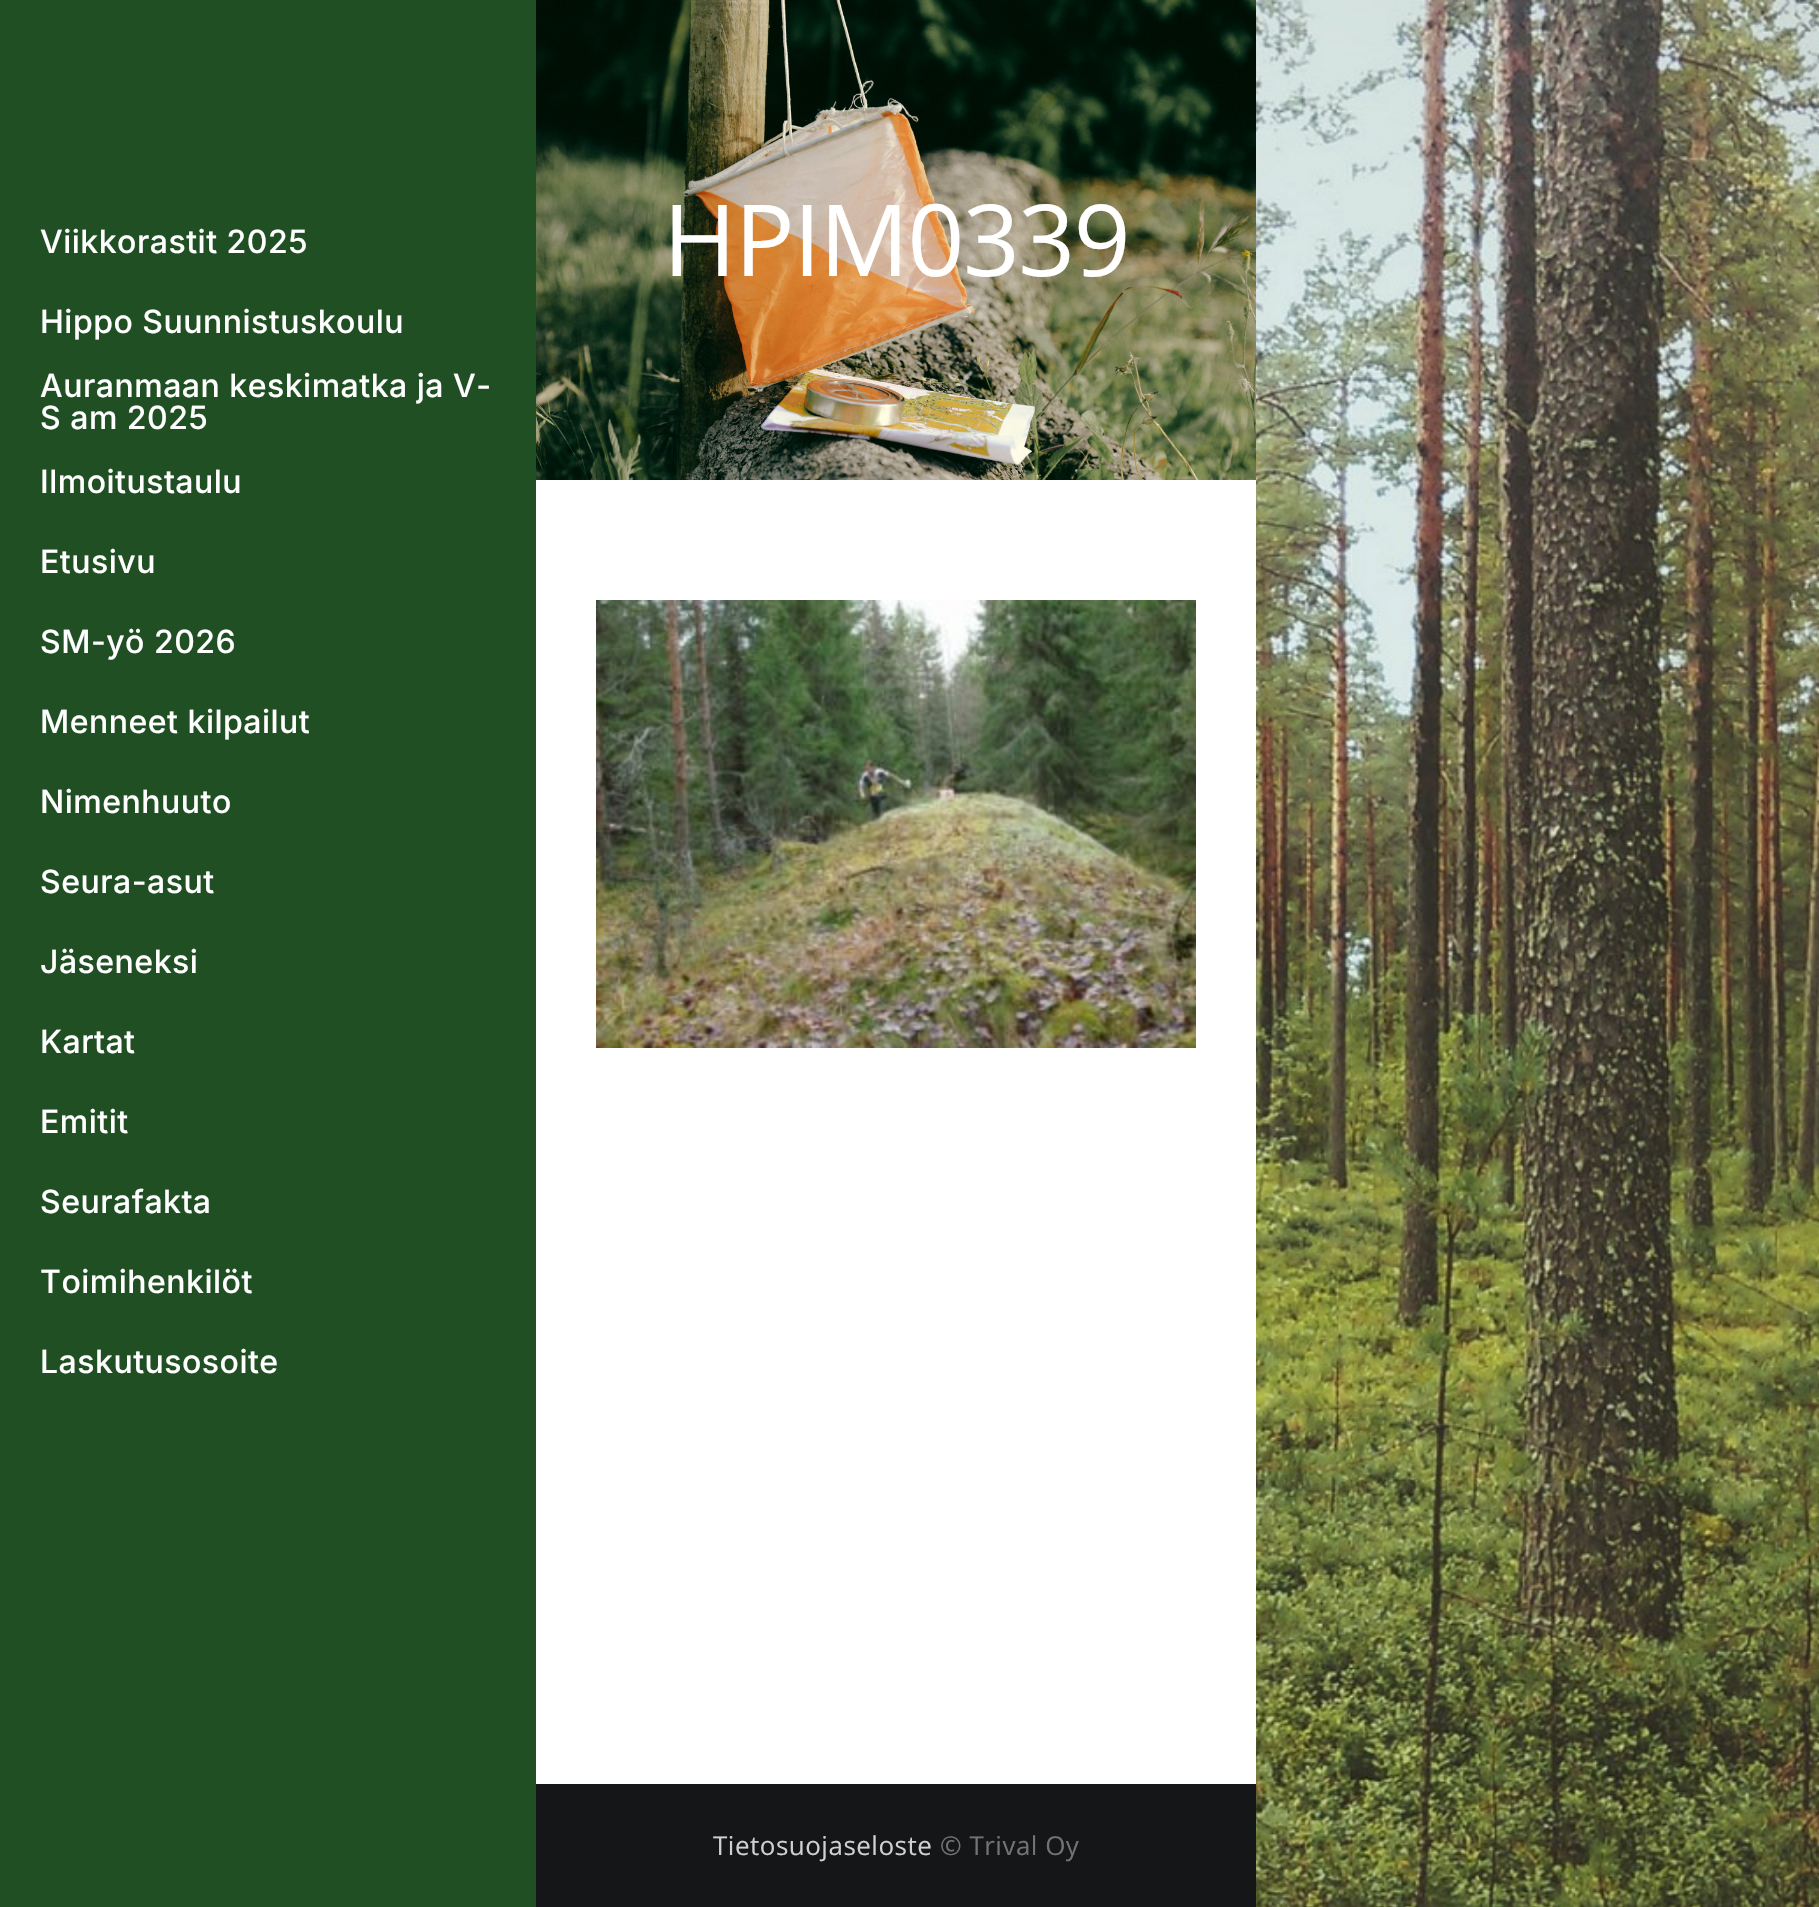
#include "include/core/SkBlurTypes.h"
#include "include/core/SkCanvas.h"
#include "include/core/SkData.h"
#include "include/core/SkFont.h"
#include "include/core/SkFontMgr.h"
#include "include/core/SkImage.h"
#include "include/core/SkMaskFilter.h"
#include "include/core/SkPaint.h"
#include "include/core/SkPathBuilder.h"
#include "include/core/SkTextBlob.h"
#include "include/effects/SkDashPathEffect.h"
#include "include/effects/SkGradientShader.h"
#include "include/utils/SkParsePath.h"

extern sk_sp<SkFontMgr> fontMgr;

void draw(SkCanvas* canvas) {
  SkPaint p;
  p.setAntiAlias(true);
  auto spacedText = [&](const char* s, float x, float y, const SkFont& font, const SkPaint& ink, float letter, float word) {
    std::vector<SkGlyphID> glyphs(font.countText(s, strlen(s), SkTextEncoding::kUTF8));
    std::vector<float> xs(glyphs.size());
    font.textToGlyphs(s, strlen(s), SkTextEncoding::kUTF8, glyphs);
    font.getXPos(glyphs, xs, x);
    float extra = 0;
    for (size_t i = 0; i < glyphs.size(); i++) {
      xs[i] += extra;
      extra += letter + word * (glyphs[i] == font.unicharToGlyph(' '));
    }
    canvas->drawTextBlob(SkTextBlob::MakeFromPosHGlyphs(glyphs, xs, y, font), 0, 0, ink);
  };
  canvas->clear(SK_ColorWHITE);
  canvas->drawImageRect(SkImages::DeferredFromEncodedData(SkData::MakeFromFileName("images/1.png")), SkRect::MakeLTRB(1256, 0, 1819, 1907), SkSamplingOptions());
  p.setColor(SkColorSetRGB(33, 79, 36));
  canvas->drawRect(SkRect::MakeLTRB(0, 0, 536, 1907), p);
  canvas->drawImageRect(SkImages::DeferredFromEncodedData(SkData::MakeFromFileName("images/2.png")), SkRect::MakeLTRB(536, 0, 1256, 480), SkSamplingOptions());
  canvas->drawImageRect(SkImages::DeferredFromEncodedData(SkData::MakeFromFileName("images/3.png")), SkRect::MakeLTRB(596, 600, 1196, 1048), SkSamplingOptions());
  p.setColor(SkColorSetRGB(20, 22, 23));
  canvas->drawRect(SkRect::MakeLTRB(536, 1784, 1256, 1907), p);
  SkFont font1(fontMgr->matchFamilyStyle("Inter", SkFontStyle(500, SkFontStyle::kNormal_Width, SkFontStyle::kUpright_Slant)), 32);
  font1.setSubpixel(true);
  p.setColor(SK_ColorWHITE);
  spacedText("Viikkorastit 2025", 40, 253, font1, p, 0.5f, 0);
  spacedText("Hippo Suunnistuskoulu", 40, 333, font1, p, 0.5f, 0);
  spacedText("Auranmaan keskimatka ja V-", 40, 397, font1, p, 0.5f, 0);
  spacedText("S am 2025", 40, 429, font1, p, 0.5f, 0);
  spacedText("Ilmoitustaulu", 40, 493, font1, p, 0.5f, 0);
  spacedText("Etusivu", 40, 573, font1, p, 0.5f, 0);
  spacedText("SM-yö 2026", 40, 653, font1, p, 0.5f, 0);
  spacedText("Menneet kilpailut", 40, 733, font1, p, 0.5f, 0);
  spacedText("Nimenhuuto", 40, 813, font1, p, 0.5f, 0);
  spacedText("Seura-asut", 40, 893, font1, p, 0.5f, 0);
  spacedText("Jäseneksi", 40, 973, font1, p, 0.5f, 0);
  spacedText("Kartat", 40, 1053, font1, p, 0.5f, 0);
  spacedText("Emitit", 40, 1133, font1, p, 0.5f, 0);
  spacedText("Seurafakta", 40, 1213, font1, p, 0.5f, 0);
  spacedText("Toimihenkilöt", 40, 1293, font1, p, 0.5f, 0);
  spacedText("Laskutusosoite", 40, 1373, font1, p, 0.5f, 0);
  SkFont font2(fontMgr->matchFamilyStyle("Open Sans", SkFontStyle::Normal()), 99.5f);
  font2.setSubpixel(true);
  spacedText("HPIM0339", 663, 276, font2, p, -1.5f, 0);
  SkFont font3(fontMgr->matchFamilyStyle("Open Sans", SkFontStyle::Normal()), 26);
  font3.setSubpixel(true);
  p.setColor(SkColorSetRGB(208, 208, 209));
  spacedText("Tietosuojaseloste", 713, 1855, font3, p, 0.5f, 0);
  p.setColor(SkColorSetRGB(114, 115, 116));
  spacedText("© Trival Oy", 940, 1855, font3, p, 0.5f, 0);
}
